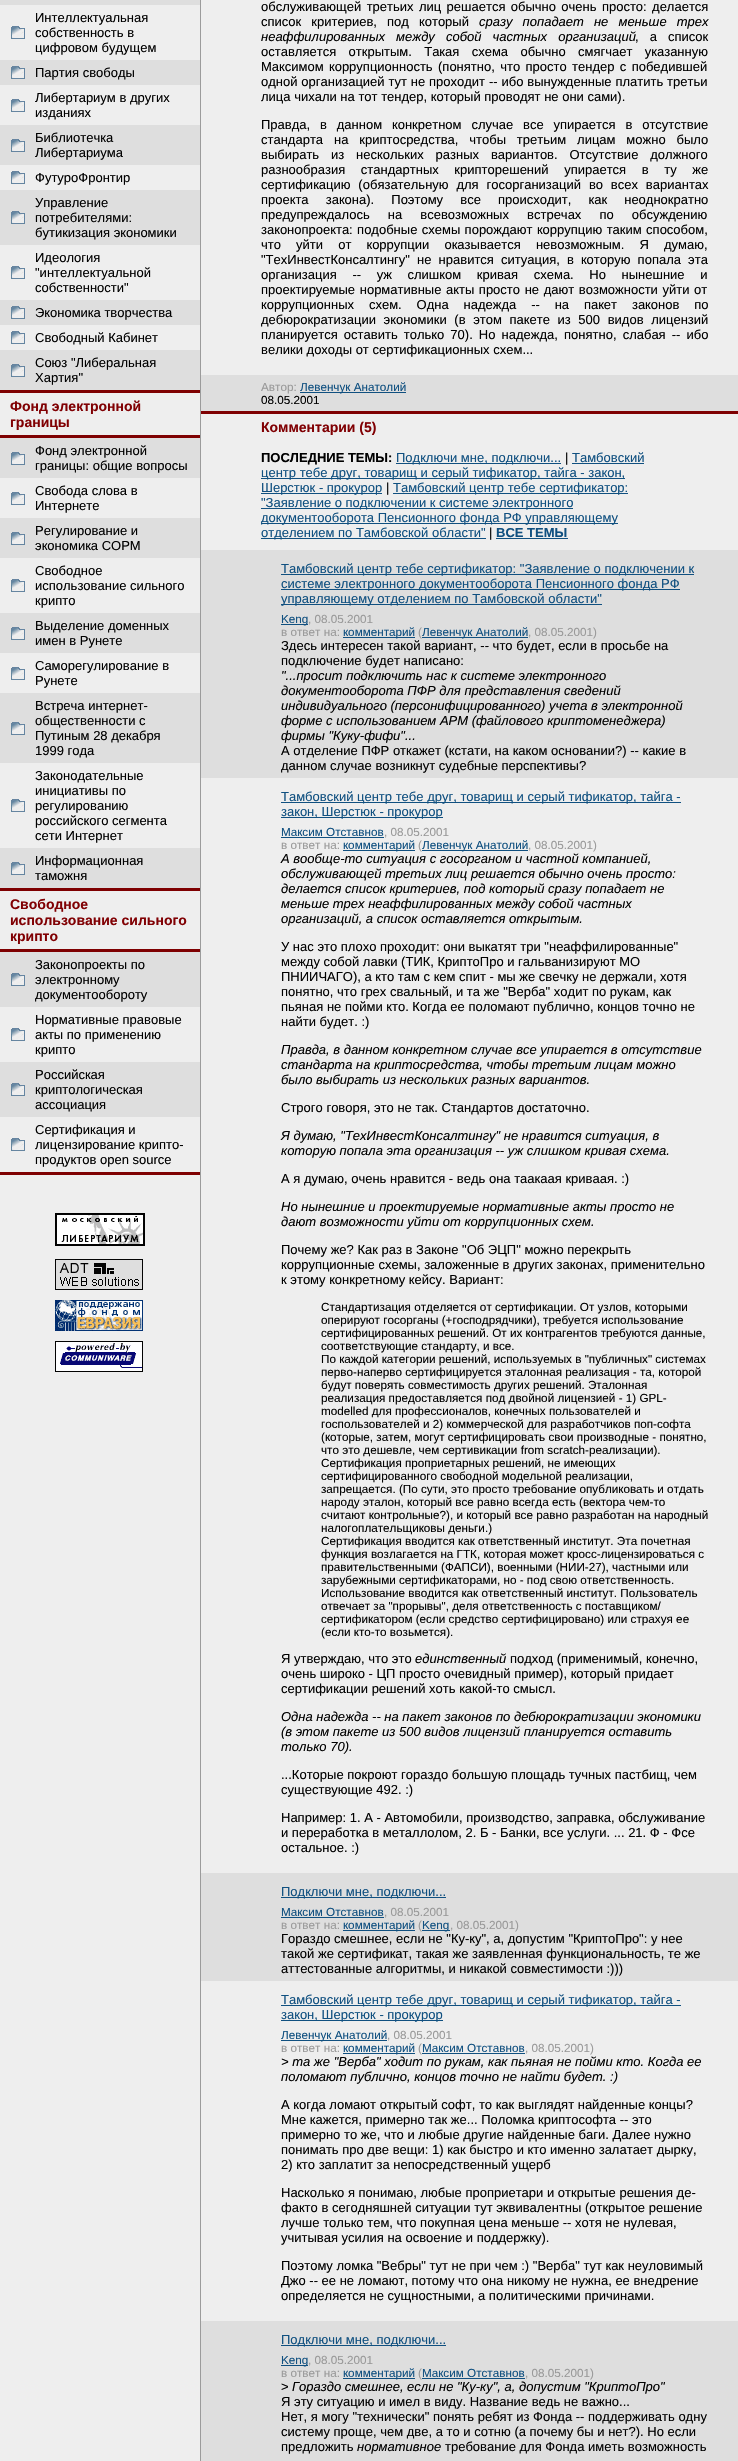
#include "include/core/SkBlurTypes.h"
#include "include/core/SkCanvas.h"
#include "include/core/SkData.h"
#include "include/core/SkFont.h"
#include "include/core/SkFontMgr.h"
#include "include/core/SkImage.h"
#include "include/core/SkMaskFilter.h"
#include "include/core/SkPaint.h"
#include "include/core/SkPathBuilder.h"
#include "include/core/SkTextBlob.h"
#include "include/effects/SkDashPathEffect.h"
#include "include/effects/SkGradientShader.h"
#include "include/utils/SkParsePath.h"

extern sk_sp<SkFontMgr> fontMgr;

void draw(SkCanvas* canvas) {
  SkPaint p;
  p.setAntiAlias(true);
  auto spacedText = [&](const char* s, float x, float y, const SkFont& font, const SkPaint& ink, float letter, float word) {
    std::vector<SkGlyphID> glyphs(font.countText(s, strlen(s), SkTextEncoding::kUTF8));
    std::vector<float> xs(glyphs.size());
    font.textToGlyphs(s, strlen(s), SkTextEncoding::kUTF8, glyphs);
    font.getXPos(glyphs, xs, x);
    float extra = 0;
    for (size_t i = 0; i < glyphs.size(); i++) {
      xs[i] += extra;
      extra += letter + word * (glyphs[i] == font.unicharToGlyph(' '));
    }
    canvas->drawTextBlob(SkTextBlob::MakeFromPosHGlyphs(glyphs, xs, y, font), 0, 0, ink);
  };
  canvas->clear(SkColorSetRGB(238, 238, 238));
  p.setColor(SkColorSetRGB(222, 222, 222));
  canvas->drawRect(SkRect::MakeLTRB(0, 0, 200, 5), p);
  canvas->drawImageRect(SkImages::DeferredFromEncodedData(SkData::MakeFromFileName("images/1.png")), SkRect::MakeLTRB(11, 26, 25, 39), SkSamplingOptions());
  canvas->drawRect(SkRect::MakeLTRB(0, 60, 200, 85), p);
  canvas->drawImageRect(SkImages::DeferredFromEncodedData(SkData::MakeFromFileName("images/2.png")), SkRect::MakeLTRB(11, 66, 25, 79), SkSamplingOptions());
  canvas->drawImageRect(SkImages::DeferredFromEncodedData(SkData::MakeFromFileName("images/1.png")), SkRect::MakeLTRB(11, 99, 25, 112), SkSamplingOptions());
  canvas->drawRect(SkRect::MakeLTRB(0, 125, 200, 165), p);
  canvas->drawImageRect(SkImages::DeferredFromEncodedData(SkData::MakeFromFileName("images/2.png")), SkRect::MakeLTRB(11, 139, 25, 152), SkSamplingOptions());
  canvas->drawImageRect(SkImages::DeferredFromEncodedData(SkData::MakeFromFileName("images/1.png")), SkRect::MakeLTRB(11, 171, 25, 184), SkSamplingOptions());
  canvas->drawRect(SkRect::MakeLTRB(0, 190, 200, 245), p);
  canvas->drawImageRect(SkImages::DeferredFromEncodedData(SkData::MakeFromFileName("images/2.png")), SkRect::MakeLTRB(11, 211, 25, 224), SkSamplingOptions());
  canvas->drawImageRect(SkImages::DeferredFromEncodedData(SkData::MakeFromFileName("images/1.png")), SkRect::MakeLTRB(11, 266, 25, 279), SkSamplingOptions());
  canvas->drawRect(SkRect::MakeLTRB(0, 300, 200, 325), p);
  canvas->drawImageRect(SkImages::DeferredFromEncodedData(SkData::MakeFromFileName("images/2.png")), SkRect::MakeLTRB(11, 306, 25, 319), SkSamplingOptions());
  canvas->drawImageRect(SkImages::DeferredFromEncodedData(SkData::MakeFromFileName("images/1.png")), SkRect::MakeLTRB(11, 331, 25, 344), SkSamplingOptions());
  canvas->drawRect(SkRect::MakeLTRB(0, 350, 200, 390), p);
  canvas->drawImageRect(SkImages::DeferredFromEncodedData(SkData::MakeFromFileName("images/2.png")), SkRect::MakeLTRB(11, 364, 25, 377), SkSamplingOptions());
  p.setColor(SkColorSetRGB(126, 0, 1));
  canvas->drawRect(SkRect::MakeLTRB(0, 390, 200, 393), p);
  canvas->drawRect(SkRect::MakeLTRB(0, 435, 200, 438), p);
  p.setColor(SkColorSetRGB(222, 222, 222));
  canvas->drawRect(SkRect::MakeLTRB(0, 438, 200, 478), p);
  canvas->drawImageRect(SkImages::DeferredFromEncodedData(SkData::MakeFromFileName("images/2.png")), SkRect::MakeLTRB(11, 452, 25, 465), SkSamplingOptions());
  canvas->drawImageRect(SkImages::DeferredFromEncodedData(SkData::MakeFromFileName("images/1.png")), SkRect::MakeLTRB(11, 492, 25, 505), SkSamplingOptions());
  canvas->drawRect(SkRect::MakeLTRB(0, 518, 200, 558), p);
  canvas->drawImageRect(SkImages::DeferredFromEncodedData(SkData::MakeFromFileName("images/2.png")), SkRect::MakeLTRB(11, 532, 25, 545), SkSamplingOptions());
  canvas->drawImageRect(SkImages::DeferredFromEncodedData(SkData::MakeFromFileName("images/1.png")), SkRect::MakeLTRB(11, 579, 25, 592), SkSamplingOptions());
  canvas->drawRect(SkRect::MakeLTRB(0, 613, 200, 653), p);
  canvas->drawImageRect(SkImages::DeferredFromEncodedData(SkData::MakeFromFileName("images/2.png")), SkRect::MakeLTRB(11, 627, 25, 640), SkSamplingOptions());
  canvas->drawImageRect(SkImages::DeferredFromEncodedData(SkData::MakeFromFileName("images/1.png")), SkRect::MakeLTRB(11, 667, 25, 680), SkSamplingOptions());
  canvas->drawRect(SkRect::MakeLTRB(0, 693, 200, 763), p);
  canvas->drawImageRect(SkImages::DeferredFromEncodedData(SkData::MakeFromFileName("images/2.png")), SkRect::MakeLTRB(11, 722, 25, 735), SkSamplingOptions());
  canvas->drawImageRect(SkImages::DeferredFromEncodedData(SkData::MakeFromFileName("images/1.png")), SkRect::MakeLTRB(11, 799, 25, 812), SkSamplingOptions());
  canvas->drawRect(SkRect::MakeLTRB(0, 848, 200, 888), p);
  canvas->drawImageRect(SkImages::DeferredFromEncodedData(SkData::MakeFromFileName("images/2.png")), SkRect::MakeLTRB(11, 862, 25, 875), SkSamplingOptions());
  p.setColor(SkColorSetRGB(126, 0, 1));
  canvas->drawRect(SkRect::MakeLTRB(0, 888, 200, 891), p);
  canvas->drawRect(SkRect::MakeLTRB(0, 949, 200, 952), p);
  p.setColor(SkColorSetRGB(222, 222, 222));
  canvas->drawRect(SkRect::MakeLTRB(0, 952, 200, 1007), p);
  canvas->drawImageRect(SkImages::DeferredFromEncodedData(SkData::MakeFromFileName("images/2.png")), SkRect::MakeLTRB(11, 973, 25, 986), SkSamplingOptions());
  canvas->drawImageRect(SkImages::DeferredFromEncodedData(SkData::MakeFromFileName("images/1.png")), SkRect::MakeLTRB(11, 1028, 25, 1041), SkSamplingOptions());
  canvas->drawRect(SkRect::MakeLTRB(0, 1062, 200, 1117), p);
  canvas->drawImageRect(SkImages::DeferredFromEncodedData(SkData::MakeFromFileName("images/2.png")), SkRect::MakeLTRB(11, 1083, 25, 1096), SkSamplingOptions());
  canvas->drawImageRect(SkImages::DeferredFromEncodedData(SkData::MakeFromFileName("images/1.png")), SkRect::MakeLTRB(11, 1138, 25, 1151), SkSamplingOptions());
  p.setColor(SkColorSetRGB(126, 0, 1));
  canvas->drawRect(SkRect::MakeLTRB(0, 1172, 200, 1175), p);
  p.setStyle(SkPaint::kStroke_Style);
  p.setStrokeWidth(1);
  p.setColor(SK_ColorBLACK);
  canvas->drawRect(SkRect::MakeLTRB(55.5f, 1213.5f, 144.5f, 1245.5f), p);
  canvas->drawImageRect(SkImages::DeferredFromEncodedData(SkData::MakeFromFileName("images/3.png")), SkRect::MakeLTRB(56, 1214, 144, 1245), SkSamplingOptions());
  canvas->drawImageRect(SkImages::DeferredFromEncodedData(SkData::MakeFromFileName("images/4.png")), SkRect::MakeLTRB(55, 1259, 143, 1290), SkSamplingOptions());
  canvas->drawImageRect(SkImages::DeferredFromEncodedData(SkData::MakeFromFileName("images/5.png")), SkRect::MakeLTRB(55, 1300, 143, 1331), SkSamplingOptions());
  canvas->drawImageRect(SkImages::DeferredFromEncodedData(SkData::MakeFromFileName("images/6.png")), SkRect::MakeLTRB(55, 1341, 143, 1372), SkSamplingOptions());
  p.setStyle(SkPaint::kFill_Style);
  p.setColor(SkColorSetRGB(155, 155, 155));
  canvas->drawRect(SkRect::MakeLTRB(200, 0, 201, 2461), p);
  p.setColor(SkColorSetRGB(222, 222, 222));
  canvas->drawRect(SkRect::MakeLTRB(201, 375, 738, 411), p);
  p.setColor(SkColorSetRGB(16, 80, 128));
  canvas->drawRect(SkRect::MakeLTRB(300, 392, 406, 393), p);
  p.setColor(SkColorSetRGB(126, 0, 1));
  canvas->drawRect(SkRect::MakeLTRB(201, 411, 738, 414), p);
  p.setColor(SkColorSetRGB(16, 80, 128));
  canvas->drawRect(SkRect::MakeLTRB(396, 463, 561, 464), p);
  canvas->drawRect(SkRect::MakeLTRB(572, 463, 644, 464), p);
  canvas->drawRect(SkRect::MakeLTRB(261, 478, 625, 479), p);
  canvas->drawRect(SkRect::MakeLTRB(261, 493, 382, 494), p);
  canvas->drawRect(SkRect::MakeLTRB(393, 493, 628, 494), p);
  canvas->drawRect(SkRect::MakeLTRB(261, 508, 573, 509), p);
  canvas->drawRect(SkRect::MakeLTRB(261, 523, 618, 524), p);
  canvas->drawRect(SkRect::MakeLTRB(261, 538, 486, 539), p);
  canvas->drawRect(SkRect::MakeLTRB(496, 538, 568, 539), p);
  p.setColor(SkColorSetRGB(222, 222, 222));
  canvas->drawRect(SkRect::MakeLTRB(201, 550, 738, 778), p);
  p.setColor(SkColorSetRGB(16, 80, 128));
  canvas->drawRect(SkRect::MakeLTRB(281, 574, 694, 575), p);
  canvas->drawRect(SkRect::MakeLTRB(281, 589, 680, 590), p);
  canvas->drawRect(SkRect::MakeLTRB(281, 604, 602, 605), p);
  canvas->drawRect(SkRect::MakeLTRB(281, 624, 308, 625), p);
  canvas->drawRect(SkRect::MakeLTRB(343, 637, 415, 638), p);
  canvas->drawRect(SkRect::MakeLTRB(281, 802, 681, 803), p);
  canvas->drawRect(SkRect::MakeLTRB(281, 817, 443, 818), p);
  canvas->drawRect(SkRect::MakeLTRB(281, 837, 384, 838), p);
  canvas->drawRect(SkRect::MakeLTRB(343, 850, 415, 851), p);
  p.setColor(SkColorSetRGB(222, 222, 222));
  canvas->drawRect(SkRect::MakeLTRB(201, 1873, 738, 1981), p);
  p.setColor(SkColorSetRGB(16, 80, 128));
  canvas->drawRect(SkRect::MakeLTRB(281, 1897, 446, 1898), p);
  canvas->drawRect(SkRect::MakeLTRB(281, 1917, 384, 1918), p);
  canvas->drawRect(SkRect::MakeLTRB(343, 1930, 415, 1931), p);
  canvas->drawRect(SkRect::MakeLTRB(281, 2005, 681, 2006), p);
  canvas->drawRect(SkRect::MakeLTRB(281, 2020, 443, 2021), p);
  canvas->drawRect(SkRect::MakeLTRB(281, 2040, 387, 2041), p);
  canvas->drawRect(SkRect::MakeLTRB(343, 2053, 415, 2054), p);
  p.setColor(SkColorSetRGB(222, 222, 222));
  canvas->drawRect(SkRect::MakeLTRB(201, 2321, 738, 2461), p);
  p.setColor(SkColorSetRGB(16, 80, 128));
  canvas->drawRect(SkRect::MakeLTRB(281, 2345, 446, 2346), p);
  canvas->drawRect(SkRect::MakeLTRB(281, 2365, 308, 2366), p);
  canvas->drawRect(SkRect::MakeLTRB(343, 2378, 415, 2379), p);
  SkFont font1(fontMgr->matchFamilyStyle("Liberation Sans", SkFontStyle::Normal()), 13);
  font1.setSubpixel(true);
  p.setColor(SK_ColorBLACK);
  canvas->drawString("Интеллектуальная", 35, 22, font1, p);
  canvas->drawString("собственность в", 35, 37, font1, p);
  canvas->drawString("цифровом будущем", 35, 52, font1, p);
  canvas->drawString("Партия свободы", 35, 77, font1, p);
  canvas->drawString("Либертариум в других", 35, 102, font1, p);
  canvas->drawString("изданиях", 35, 117, font1, p);
  canvas->drawString("Библиотечка", 35, 142, font1, p);
  canvas->drawString("Либертариума", 35, 157, font1, p);
  canvas->drawString("ФутуроФронтир", 35, 182, font1, p);
  canvas->drawString("Управление", 35, 207, font1, p);
  canvas->drawString("потребителями:", 35, 222, font1, p);
  canvas->drawString("бутикизация экономики", 35, 237, font1, p);
  canvas->drawString("Идеология", 35, 262, font1, p);
  canvas->drawString("\"интеллектуальной", 35, 277, font1, p);
  canvas->drawString("собственности\"", 35, 292, font1, p);
  canvas->drawString("Экономика творчества", 35, 317, font1, p);
  canvas->drawString("Свободный Кабинет", 35, 342, font1, p);
  canvas->drawString("Союз \"Либеральная", 35, 367, font1, p);
  canvas->drawString("Хартия\"", 35, 382, font1, p);
  SkFont font2(fontMgr->matchFamilyStyle("Liberation Sans", SkFontStyle::Bold()), 14);
  font2.setSubpixel(true);
  p.setColor(SkColorSetRGB(128, 0, 3));
  canvas->drawString("Фонд электронной", 10, 411, font2, p);
  canvas->drawString("границы", 10, 427, font2, p);
  p.setColor(SK_ColorBLACK);
  canvas->drawString("Фонд электронной", 35, 455, font1, p);
  canvas->drawString("границы: общие вопросы", 35, 470, font1, p);
  canvas->drawString("Свобода слова в", 35, 495, font1, p);
  canvas->drawString("Интернете", 35, 510, font1, p);
  canvas->drawString("Регулирование и", 35, 535, font1, p);
  canvas->drawString("экономика СОРМ", 35, 550, font1, p);
  canvas->drawString("Свободное", 35, 575, font1, p);
  canvas->drawString("использование сильного", 35, 590, font1, p);
  canvas->drawString("крипто", 35, 605, font1, p);
  canvas->drawString("Выделение доменных", 35, 630, font1, p);
  canvas->drawString("имен в Рунете", 35, 645, font1, p);
  canvas->drawString("Саморегулирование в", 35, 670, font1, p);
  canvas->drawString("Рунете", 35, 685, font1, p);
  canvas->drawString("Встреча интернет-", 35, 710, font1, p);
  canvas->drawString("общественности с", 35, 725, font1, p);
  canvas->drawString("Путиным 28 декабря", 35, 740, font1, p);
  canvas->drawString("1999 года", 35, 755, font1, p);
  canvas->drawString("Законодательные", 35, 780, font1, p);
  canvas->drawString("инициативы по", 35, 795, font1, p);
  canvas->drawString("регулированию", 35, 810, font1, p);
  canvas->drawString("российского сегмента", 35, 825, font1, p);
  canvas->drawString("сети Интернет", 35, 840, font1, p);
  canvas->drawString("Информационная", 35, 865, font1, p);
  canvas->drawString("таможня", 35, 880, font1, p);
  p.setColor(SkColorSetRGB(128, 0, 3));
  canvas->drawString("Свободное", 10, 909, font2, p);
  canvas->drawString("использование сильного", 10, 925, font2, p);
  canvas->drawString("крипто", 10, 941, font2, p);
  p.setColor(SK_ColorBLACK);
  canvas->drawString("Законопроекты по", 35, 969, font1, p);
  canvas->drawString("электронному", 35, 984, font1, p);
  canvas->drawString("документообороту", 35, 999, font1, p);
  canvas->drawString("Нормативные правовые", 35, 1024, font1, p);
  canvas->drawString("акты по применению", 35, 1039, font1, p);
  canvas->drawString("крипто", 35, 1054, font1, p);
  canvas->drawString("Российская", 35, 1079, font1, p);
  canvas->drawString("криптологическая", 35, 1094, font1, p);
  canvas->drawString("ассоциация", 35, 1109, font1, p);
  canvas->drawString("Сертификация и", 35, 1134, font1, p);
  canvas->drawString("лицензирование крипто-", 35, 1149, font1, p);
  canvas->drawString("продуктов open source", 35, 1164, font1, p);
  spacedText("обслуживающей третьих лиц решается обычно очень просто: делается", 261, 11, font1, p, 0, 1.75f);
  spacedText("список критериев, под который", 261, 26, font1, p, 0, 6.5f);
  SkFont font3(fontMgr->matchFamilyStyle("Liberation Sans", SkFontStyle::Italic()), 13);
  font3.setSubpixel(true);
  spacedText("сразу попадает не меньше трех", 479, 26, font3, p, 0, 6.5f);
  spacedText("неаффилированных между собой частных организаций", 261, 41, font3, p, 0, 7.5f);
  spacedText(", а список", 635, 41, font1, p, 0, 7.5f);
  spacedText("оставляется открытым. Такая схема обычно смягчает указанную", 261, 56, font1, p, 0, 8.75f);
  spacedText("Максимом коррупционность (понятно, что просто тендер с победившей", 261, 71, font1, p, 0, 1.75f);
  spacedText("одной организацией тут не проходит -- ибо вынужденные платить третьи", 261, 86, font1, p, 0, 0.25f);
  canvas->drawString("лица чихали на тот тендер, который проводят не они сами).", 261, 101, font1, p);
  spacedText("Правда, в данном конкретном случае все упирается в отсутствие", 261, 129, font1, p, 0, 6.25f);
  spacedText("стандарта на криптосредства, чтобы третьим лицам можно было", 261, 144, font1, p, 0, 7.25f);
  spacedText("выбирать из нескольких разных вариантов. Отсутствие должного", 261, 159, font1, p, 0, 8.25f);
  spacedText("разнообразия стандартных крипторешений упирается в ту же", 261, 174, font1, p, 0, 12);
  spacedText("сертификацию (обязательную для госорганизаций во всех вариантах", 261, 189, font1, p, 0, 4.25f);
  spacedText("проекта закона). Поэтому все происходит, как неоднократно", 261, 204, font1, p, 0, 13.5f);
  spacedText("предупреждалось на всевозможных встречах по обсуждению", 261, 219, font1, p, 0, 14.5f);
  spacedText("законопроекта: подобные схемы порождают коррупцию таким способом,", 261, 234, font1, p, 0, 0.75f);
  spacedText("что уйти от коррупции оказывается невозможным. Я думаю,", 261, 249, font1, p, 0, 11.5f);
  spacedText("\"ТехИнвестКонсалтингу\" не нравится ситуация, в которую попала эта", 261, 264, font1, p, 0, 3.5f);
  spacedText("организация -- уж слишком кривая схема. Но нынешние и", 261, 279, font1, p, 0, 12);
  spacedText("проектируемые нормативные акты просто не дают возможности уйти от", 261, 294, font1, p, 0, 1);
  spacedText("коррупционных схем. Одна надежда -- на пакет законов по", 261, 309, font1, p, 0, 11.25f);
  spacedText("дебюрократизации экономики (в этом пакете из 500 видов лицензий", 261, 324, font1, p, 0, 4);
  spacedText("планируется оставить только 70). Но надежда, понятно, слабая -- ибо", 261, 339, font1, p, 0, 2.5f);
  canvas->drawString("велики доходы от сертификационных схем...", 261, 354, font1, p);
  SkFont font4(fontMgr->matchFamilyStyle("Liberation Sans", SkFontStyle::Normal()), 11.7f);
  font4.setSubpixel(true);
  p.setColor(SkColorSetRGB(153, 153, 153));
  canvas->drawString("Автор:", 261, 391, font4, p);
  p.setColor(SkColorSetRGB(16, 80, 128));
  canvas->drawString("Левенчук Анатолий", 300, 391, font4, p);
  p.setColor(SK_ColorBLACK);
  canvas->drawString("08.05.2001", 261, 404, font4, p);
  p.setColor(SkColorSetRGB(128, 0, 3));
  canvas->drawString("Комментарии (5)", 261, 432, font2, p);
  SkFont font5(fontMgr->matchFamilyStyle("Liberation Sans", SkFontStyle::Bold()), 13);
  font5.setSubpixel(true);
  p.setColor(SK_ColorBLACK);
  canvas->drawString("ПОСЛЕДНИЕ ТЕМЫ:", 261, 462, font5, p);
  p.setColor(SkColorSetRGB(16, 80, 128));
  canvas->drawString("Подключи мне, подключи...", 396, 462, font1, p);
  p.setColor(SK_ColorBLACK);
  canvas->drawString("|", 565, 462, font1, p);
  p.setColor(SkColorSetRGB(16, 80, 128));
  canvas->drawString("Тамбовский", 572, 462, font1, p);
  canvas->drawString("центр тебе друг, товарищ и серый тификатор, тайга - закон,", 261, 477, font1, p);
  canvas->drawString("Шерстюк - прокурор", 261, 492, font1, p);
  p.setColor(SK_ColorBLACK);
  canvas->drawString("|", 386, 492, font1, p);
  p.setColor(SkColorSetRGB(16, 80, 128));
  canvas->drawString("Тамбовский центр тебе сертификатор:", 393, 492, font1, p);
  canvas->drawString("\"Заявление о подключении к системе электронного", 261, 507, font1, p);
  canvas->drawString("документооборота Пенсионного фонда РФ управляющему", 261, 522, font1, p);
  canvas->drawString("отделением по Тамбовской области\"", 261, 537, font1, p);
  p.setColor(SK_ColorBLACK);
  canvas->drawString("|", 489, 537, font1, p);
  p.setColor(SkColorSetRGB(16, 80, 128));
  canvas->drawString("ВСЕ ТЕМЫ", 496, 537, font5, p);
  canvas->drawString("Тамбовский центр тебе сертификатор: \"Заявление о подключении к", 281, 573, font1, p);
  canvas->drawString("системе электронного документооборота Пенсионного фонда РФ", 281, 588, font1, p);
  canvas->drawString("управляющему отделением по Тамбовской области\"", 281, 603, font1, p);
  canvas->drawString("Keng", 281, 623, font4, p);
  p.setColor(SkColorSetRGB(153, 153, 153));
  canvas->drawString(", 08.05.2001", 308, 623, font4, p);
  canvas->drawString("в ответ на:", 281, 636, font4, p);
  p.setColor(SkColorSetRGB(16, 80, 128));
  canvas->drawString("комментарий", 343, 636, font4, p);
  p.setColor(SkColorSetRGB(153, 153, 153));
  canvas->drawString("(", 418, 636, font4, p);
  p.setColor(SkColorSetRGB(16, 80, 128));
  canvas->drawRect(SkRect::MakeLTRB(422, 637, 528, 638), p);
  canvas->drawString("Левенчук Анатолий", 422, 636, font4, p);
  p.setColor(SkColorSetRGB(153, 153, 153));
  canvas->drawString(", 08.05.2001)", 528, 636, font4, p);
  p.setColor(SK_ColorBLACK);
  canvas->drawString("Здесь интересен такой вариант, -- что будет, если в просьбе на", 281, 650, font1, p);
  canvas->drawString("подключение будет написано:", 281, 665, font1, p);
  canvas->drawString("\"...просит подключить нас к системе электронного", 281, 680, font3, p);
  canvas->drawString("документооборота ПФР для представления сведений", 281, 695, font3, p);
  canvas->drawString("индивидуального (персонифицированного) учета в электронной", 281, 710, font3, p);
  canvas->drawString("форме с использованием АРМ (файлового криптоменеджера)", 281, 725, font3, p);
  canvas->drawString("фирмы \"Куку-фифи\"...", 281, 740, font3, p);
  canvas->drawString("А отделение ПФР откажет (кстати, на каком основании?) -- какие в", 281, 755, font1, p);
  canvas->drawString("данном случае возникнут судебные перспективы?", 281, 770, font1, p);
  p.setColor(SkColorSetRGB(16, 80, 128));
  canvas->drawString("Тамбовский центр тебе друг, товарищ и серый тификатор, тайга -", 281, 801, font1, p);
  canvas->drawString("закон, Шерстюк - прокурор", 281, 816, font1, p);
  canvas->drawString("Максим Отставнов", 281, 836, font4, p);
  p.setColor(SkColorSetRGB(153, 153, 153));
  canvas->drawString(", 08.05.2001", 384, 836, font4, p);
  canvas->drawString("в ответ на:", 281, 849, font4, p);
  p.setColor(SkColorSetRGB(16, 80, 128));
  canvas->drawString("комментарий", 343, 849, font4, p);
  p.setColor(SkColorSetRGB(153, 153, 153));
  canvas->drawString("(", 418, 849, font4, p);
  p.setColor(SkColorSetRGB(16, 80, 128));
  canvas->drawRect(SkRect::MakeLTRB(422, 850, 528, 851), p);
  canvas->drawString("Левенчук Анатолий", 422, 849, font4, p);
  p.setColor(SkColorSetRGB(153, 153, 153));
  canvas->drawString(", 08.05.2001)", 528, 849, font4, p);
  p.setColor(SK_ColorBLACK);
  canvas->drawString("А вообще-то ситуация с госорганом и частной компанией,", 281, 863, font3, p);
  canvas->drawString("обслуживающей третьих лиц решается обычно очень просто:", 281, 878, font3, p);
  canvas->drawString("делается список критериев, под который сразу попадает не", 281, 893, font3, p);
  canvas->drawString("меньше трех неаффилированных между собой частных", 281, 908, font3, p);
  canvas->drawString("организаций, а список оставляется открытым.", 281, 923, font3, p);
  canvas->drawString("У нас это плохо проходит: они выкатят три \"неаффилированные\"", 281, 951, font1, p);
  canvas->drawString("между собой лавки (ТИК, КриптоПро и гальванизируют МО", 281, 966, font1, p);
  canvas->drawString("ПНИИЧАГО), а кто там с кем спит - мы же свечку не держали, хотя", 281, 981, font1, p);
  canvas->drawString("понятно, что грех свальный, и та же \"Верба\" ходит по рукам, как", 281, 996, font1, p);
  canvas->drawString("пьяная не пойми кто. Когда ее поломают публично, концов точно не", 281, 1011, font1, p);
  canvas->drawString("найти будет. :)", 281, 1026, font1, p);
  canvas->drawString("Правда, в данном конкретном случае все упирается в отсутствие", 281, 1054, font3, p);
  canvas->drawString("стандарта на криптосредства, чтобы третьим лицам можно", 281, 1069, font3, p);
  canvas->drawString("было выбирать из нескольких разных вариантов.", 281, 1084, font3, p);
  canvas->drawString("Строго говоря, это не так. Стандартов достаточно.", 281, 1112, font1, p);
  canvas->drawString("Я думаю, \"ТехИнвестКонсалтингу\" не нравится ситуация, в", 281, 1140, font3, p);
  canvas->drawString("которую попала эта организация -- уж слишком кривая схема.", 281, 1155, font3, p);
  canvas->drawString("А я думаю, очень нравится - ведь она таакаая криваая. :)", 281, 1183, font1, p);
  canvas->drawString("Но нынешние и проектируемые нормативные акты просто не", 281, 1211, font3, p);
  canvas->drawString("дают возможности уйти от коррупционных схем.", 281, 1226, font3, p);
  canvas->drawString("Почему же? Как раз в Законе \"Об ЭЦП\" можно перекрыть", 281, 1254, font1, p);
  canvas->drawString("коррупционные схемы, заложенные в других законах, применительно", 281, 1269, font1, p);
  canvas->drawString("к этому конкретному кейсу. Вариант:", 281, 1284, font1, p);
  canvas->drawString("Стандартизация отделяется от сертификации. От узлов, которыми", 321, 1311, font4, p);
  canvas->drawString("оперируют госорганы (+господрядчики), требуется использование", 321, 1324, font4, p);
  canvas->drawString("сертифицированных решений. От их контрагентов требуются данные,", 321, 1337, font4, p);
  canvas->drawString("соответствующие стандарту, и все.", 321, 1350, font4, p);
  canvas->drawString("По каждой категории решений, используемых в \"публичных\" системах", 321, 1363, font4, p);
  canvas->drawString("перво-наперво сертифицируется эталонная реализация - та, которой", 321, 1376, font4, p);
  canvas->drawString("будут поверять совместимость других решений. Эталонная", 321, 1389, font4, p);
  canvas->drawString("реализация предоставляется под двойной лицензией - 1) GPL-", 321, 1402, font4, p);
  canvas->drawString("modelled для профессионалов, конечных пользователей и", 321, 1415, font4, p);
  canvas->drawString("госпользователей и 2) коммерческой для разработчиков поп-софта", 321, 1428, font4, p);
  canvas->drawString("(которые, затем, могут сертифицировать свои производные - понятно,", 321, 1441, font4, p);
  canvas->drawString("что это дешевле, чем сертивикации from scratch-реализации).", 321, 1454, font4, p);
  canvas->drawString("Сертификация проприетарных решений, не имеющих", 321, 1467, font4, p);
  canvas->drawString("сертифицированного свободной модельной реализации,", 321, 1480, font4, p);
  canvas->drawString("запрещается. (По сути, это просто требование опубликовать и отдать", 321, 1493, font4, p);
  canvas->drawString("народу эталон, который все равно всегда есть (вектора чем-то", 321, 1506, font4, p);
  canvas->drawString("считают контрольные?), и который все равно разработан на народный", 321, 1519, font4, p);
  canvas->drawString("налогоплательщиковы деньги.)", 321, 1532, font4, p);
  canvas->drawString("Сертификация вводится как ответственный институт. Эта почетная", 321, 1545, font4, p);
  canvas->drawString("функция возлагается на ГТК, которая может кросс-лицензироваться с", 321, 1558, font4, p);
  canvas->drawString("правительственными (ФАПСИ), военными (НИИ-27), частными или", 321, 1571, font4, p);
  canvas->drawString("зарубежными сертификаторами, но - под свою ответственность.", 321, 1584, font4, p);
  canvas->drawString("Использование вводится как ответственный институт. Пользователь", 321, 1597, font4, p);
  canvas->drawString("отвечает за \"прорывы\", деля ответственность с поставщиком/", 321, 1610, font4, p);
  canvas->drawString("сертификатором (если средство сертифицировано) или страхуя ее", 321, 1623, font4, p);
  canvas->drawString("(если кто-то возьмется).", 321, 1636, font4, p);
  canvas->drawString("Я утверждаю, что это", 281, 1663, font1, p);
  canvas->drawString("единственный", 415, 1663, font3, p);
  canvas->drawString("подход (применимый, конечно,", 510, 1663, font1, p);
  canvas->drawString("очень широко - ЦП просто очевидный пример), который придает", 281, 1678, font1, p);
  canvas->drawString("сертификации решений хоть какой-то смысл.", 281, 1693, font1, p);
  canvas->drawString("Одна надежда -- на пакет законов по дебюрократизации экономики", 281, 1721, font3, p);
  canvas->drawString("(в этом пакете из 500 видов лицензий планируется оставить", 281, 1736, font3, p);
  canvas->drawString("только 70).", 281, 1751, font3, p);
  canvas->drawString("...Которые покроют гораздо большую площадь тучных пастбищ, чем", 281, 1779, font1, p);
  canvas->drawString("существующие 492. :)", 281, 1794, font1, p);
  canvas->drawString("Например: 1. А - Автомобили, производство, заправка, обслуживание", 281, 1822, font1, p);
  canvas->drawString("и переработка в металлолом, 2. Б - Банки, все услуги. ... 21. Ф - Фсе", 281, 1837, font1, p);
  canvas->drawString("остальное. :)", 281, 1852, font1, p);
  p.setColor(SkColorSetRGB(16, 80, 128));
  canvas->drawString("Подключи мне, подключи...", 281, 1896, font1, p);
  canvas->drawString("Максим Отставнов", 281, 1916, font4, p);
  p.setColor(SkColorSetRGB(153, 153, 153));
  canvas->drawString(", 08.05.2001", 384, 1916, font4, p);
  canvas->drawString("в ответ на:", 281, 1929, font4, p);
  p.setColor(SkColorSetRGB(16, 80, 128));
  canvas->drawString("комментарий", 343, 1929, font4, p);
  p.setColor(SkColorSetRGB(153, 153, 153));
  canvas->drawString("(", 418, 1929, font4, p);
  p.setColor(SkColorSetRGB(16, 80, 128));
  canvas->drawRect(SkRect::MakeLTRB(422, 1930, 450, 1931), p);
  canvas->drawString("Keng", 422, 1929, font4, p);
  p.setColor(SkColorSetRGB(153, 153, 153));
  canvas->drawString(", 08.05.2001)", 450, 1929, font4, p);
  p.setColor(SK_ColorBLACK);
  canvas->drawString("Гораздо смешнее, если не \"Ку-ку\", а, допустим \"КриптоПро\": у нее", 281, 1943, font1, p);
  canvas->drawString("такой же сертификат, такая же заявленная функциональность, те же", 281, 1958, font1, p);
  canvas->drawString("аттестованные алгоритмы, и никакой совместимости :)))", 281, 1973, font1, p);
  p.setColor(SkColorSetRGB(16, 80, 128));
  canvas->drawString("Тамбовский центр тебе друг, товарищ и серый тификатор, тайга -", 281, 2004, font1, p);
  canvas->drawString("закон, Шерстюк - прокурор", 281, 2019, font1, p);
  canvas->drawString("Левенчук Анатолий", 281, 2039, font4, p);
  p.setColor(SkColorSetRGB(153, 153, 153));
  canvas->drawString(", 08.05.2001", 387, 2039, font4, p);
  canvas->drawString("в ответ на:", 281, 2052, font4, p);
  p.setColor(SkColorSetRGB(16, 80, 128));
  canvas->drawString("комментарий", 343, 2052, font4, p);
  p.setColor(SkColorSetRGB(153, 153, 153));
  canvas->drawString("(", 418, 2052, font4, p);
  p.setColor(SkColorSetRGB(16, 80, 128));
  canvas->drawString("Максим Отставнов", 422, 2052, font4, p);
  canvas->drawRect(SkRect::MakeLTRB(422, 2053, 525, 2054), p);
  p.setColor(SkColorSetRGB(153, 153, 153));
  canvas->drawString(", 08.05.2001)", 525, 2052, font4, p);
  p.setColor(SK_ColorBLACK);
  canvas->drawString("> та же \"Верба\" ходит по рукам, как пьяная не пойми кто. Когда ее", 281, 2066, font3, p);
  canvas->drawString("поломают публично, концов точно не найти будет. :)", 281, 2081, font3, p);
  canvas->drawString("А когда ломают открытый софт, то как выглядят найденные концы?", 281, 2109, font1, p);
  canvas->drawString("Мне кажется, примерно так же... Поломка криптософта -- это", 281, 2124, font1, p);
  canvas->drawString("примерно то же, что и любые другие найденные баги. Далее нужно", 281, 2139, font1, p);
  canvas->drawString("понимать про две вещи: 1) как быстро и кто именно залатает дырку,", 281, 2154, font1, p);
  canvas->drawString("2) кто заплатит за непосредственный ущерб", 281, 2169, font1, p);
  canvas->drawString("Насколько я понимаю, любые проприетари и открытые решения де-", 281, 2197, font1, p);
  canvas->drawString("факто в сегодняшней ситуации тут эквивалентны (открытое решение", 281, 2212, font1, p);
  canvas->drawString("лучше только тем, что покупная цена меньше -- хотя не нулевая,", 281, 2227, font1, p);
  canvas->drawString("учитывая усилия на освоение и поддержку).", 281, 2242, font1, p);
  canvas->drawString("Поэтому ломка \"Вебры\" тут не при чем :) \"Верба\" тут как неуловимый", 281, 2270, font1, p);
  canvas->drawString("Джо -- ее не ломают, потому что она никому не нужна, ее внедрение", 281, 2285, font1, p);
  canvas->drawString("определяется не сущностными, а политическими причинами.", 281, 2300, font1, p);
  p.setColor(SkColorSetRGB(16, 80, 128));
  canvas->drawString("Подключи мне, подключи...", 281, 2344, font1, p);
  canvas->drawString("Keng", 281, 2364, font4, p);
  p.setColor(SkColorSetRGB(153, 153, 153));
  canvas->drawString(", 08.05.2001", 308, 2364, font4, p);
  canvas->drawString("в ответ на:", 281, 2377, font4, p);
  p.setColor(SkColorSetRGB(16, 80, 128));
  canvas->drawString("комментарий", 343, 2377, font4, p);
  p.setColor(SkColorSetRGB(153, 153, 153));
  canvas->drawString("(", 418, 2377, font4, p);
  p.setColor(SkColorSetRGB(16, 80, 128));
  canvas->drawString("Максим Отставнов", 422, 2377, font4, p);
  canvas->drawRect(SkRect::MakeLTRB(422, 2378, 525, 2379), p);
  p.setColor(SkColorSetRGB(153, 153, 153));
  canvas->drawString(", 08.05.2001)", 525, 2377, font4, p);
  p.setColor(SK_ColorBLACK);
  canvas->drawString(">", 281, 2391, font1, p);
  canvas->drawString("Гораздо смешнее, если не \"Ку-ку\", а, допустим \"КриптоПро\"", 292, 2391, font3, p);
  canvas->drawString("Я эту ситуацию и имел в виду. Название ведь не важно...", 281, 2406, font1, p);
  canvas->drawString("Нет, я могу \"технически\" понять ребят из Фонда -- поддерживать одну", 281, 2421, font1, p);
  canvas->drawString("систему проще, чем две, а то и сотню (а почему бы и нет?). Но если", 281, 2436, font1, p);
  canvas->drawString("предложить", 281, 2451, font1, p);
  canvas->drawString("нормативное", 357, 2451, font3, p);
  canvas->drawString("требование для Фонда иметь возможность", 445, 2451, font1, p);
}
